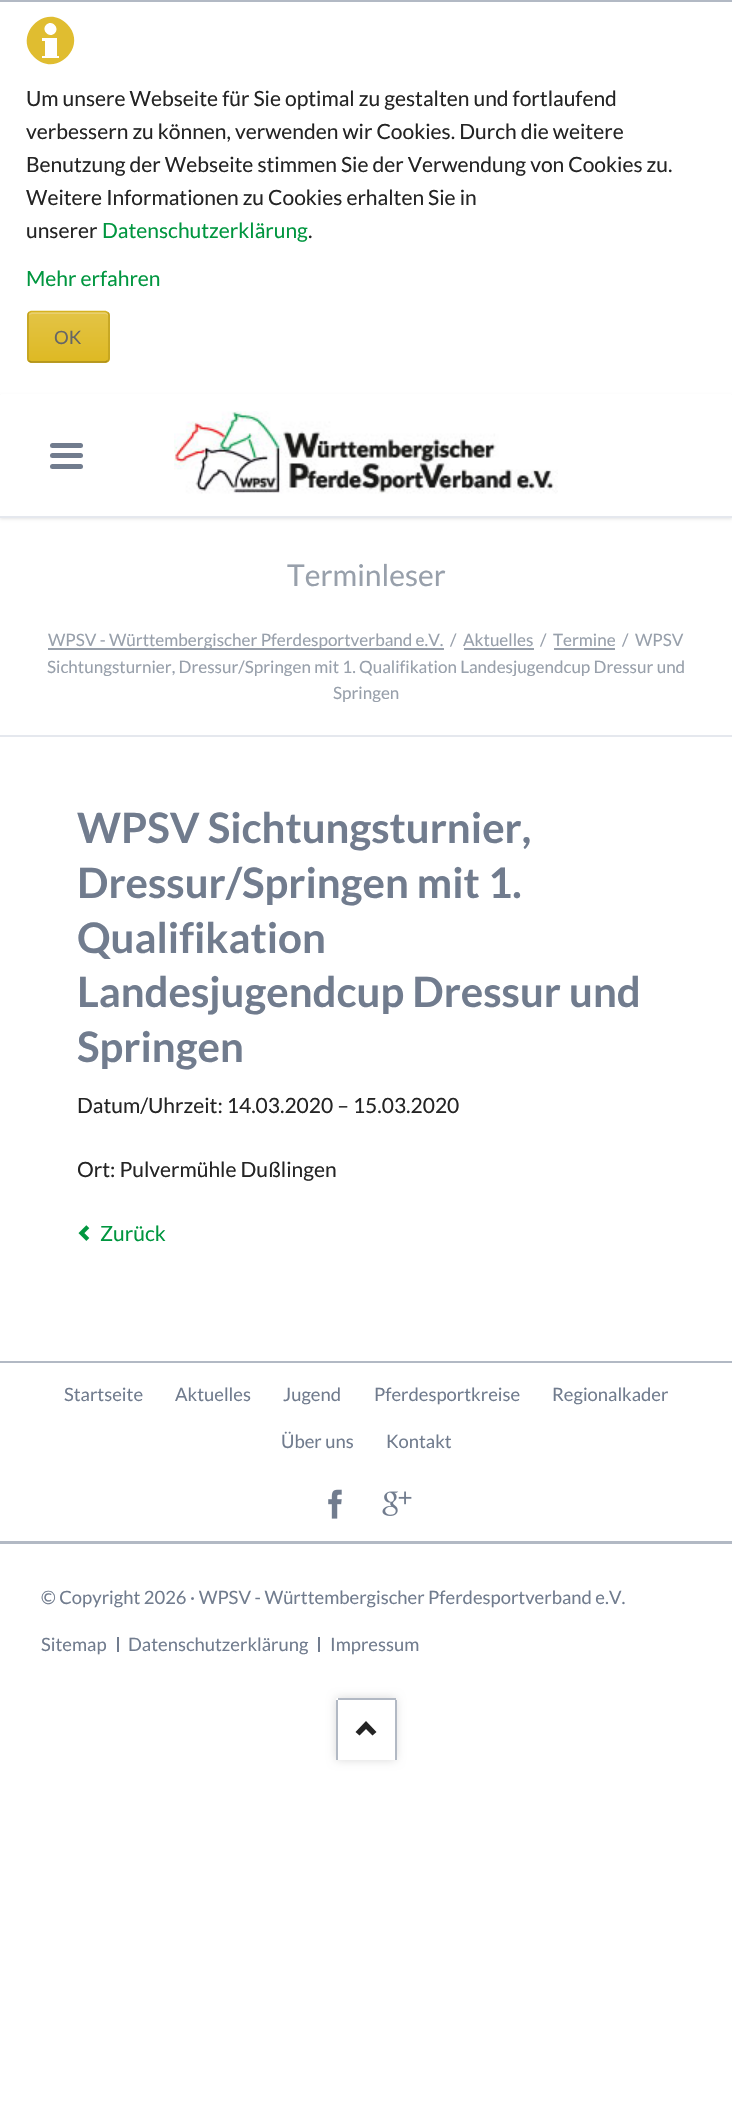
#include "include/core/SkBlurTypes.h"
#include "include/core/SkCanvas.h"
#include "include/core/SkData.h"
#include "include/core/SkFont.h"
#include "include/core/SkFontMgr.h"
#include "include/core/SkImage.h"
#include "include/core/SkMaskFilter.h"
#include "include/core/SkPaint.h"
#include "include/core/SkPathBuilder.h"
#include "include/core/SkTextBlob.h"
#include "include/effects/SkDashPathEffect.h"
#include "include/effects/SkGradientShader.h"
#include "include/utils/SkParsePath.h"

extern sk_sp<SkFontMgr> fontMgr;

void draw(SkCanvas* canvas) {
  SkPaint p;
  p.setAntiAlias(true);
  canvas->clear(SK_ColorWHITE);
  p.setColor(SkColorSetARGB(26, 0, 0, 0));
  p.setMaskFilter(SkMaskFilter::MakeBlur(kNormal_SkBlurStyle, 1.5f));
  canvas->drawRect(SkRect::MakeLTRB(0, 396, 732, 519), p);
  p.setMaskFilter(nullptr);
  p.setColor(SK_ColorWHITE);
  canvas->drawRect(SkRect::MakeLTRB(1, 394, 731, 395), p);
  p.setColor(SkColorSetRGB(178, 185, 196));
  canvas->drawRect(SkRect::MakeLTRB(0, 0, 732, 2), p);
  p.setColor(SkColorSetRGB(224, 189, 48));
  canvas->drawPath(SkPathBuilder().moveTo(67, 24).cubicTo(45, 2, 12, 36, 34, 57).cubicTo(56, 79, 89, 46, 67, 24).close().moveTo(46, 25).cubicTo(52, 19, 60, 28, 55, 33).cubicTo(49, 39, 41, 30, 46, 25).close().moveTo(59, 58).lineTo(42, 58).lineTo(42, 56).lineTo(45, 56).lineTo(45, 41).lineTo(42, 41).lineTo(42, 38).lineTo(57, 38).lineTo(57, 56).lineTo(59, 56).close().detach(), p);
  canvas->save();
  canvas->clipPath(SkPathBuilder().moveTo(32, 311).lineTo(105, 311).cubicTo(108, 311, 110, 313, 110, 316).lineTo(110, 358).cubicTo(110, 361, 108, 363, 105, 363).lineTo(32, 363).cubicTo(29, 363, 27, 361, 27, 358).lineTo(27, 316).cubicTo(27, 313, 29, 311, 32, 311).close().detach(), true);
  {
    const SkColor colors[] = {SkColorSetRGB(227, 196, 70), SkColorSetRGB(222, 185, 35)};
    const float stops[] = {0, 1};
    const SkPoint ends[] = {{68, 312}, {68, 362}};
    p.setShader(SkGradientShader::MakeLinear(ends, colors, stops, 2, SkTileMode::kClamp));
    p.setAlpha(255);
  }
  canvas->drawRect(SkRect::MakeLTRB(27, 312, 110, 362), p);
  {
    const SkColor colors[] = {SkColorSetRGB(227, 196, 70), SkColorSetRGB(222, 185, 35)};
    const float stops[] = {0, 1};
    const SkPoint ends[] = {{68, 362}, {68, 411}};
    p.setShader(SkGradientShader::MakeLinear(ends, colors, stops, 2, SkTileMode::kClamp));
    p.setAlpha(255);
  }
  canvas->drawRect(SkRect::MakeLTRB(27, 362, 110, 363), p);
  canvas->restore();
  p.setShader(nullptr);
  p.setColor(SkColorSetRGB(233, 208, 110));
  canvas->drawPath(SkPathBuilder().moveTo(32, 314).lineTo(105, 314).cubicTo(107, 314, 108, 315, 108, 316).lineTo(108, 315).cubicTo(108, 313, 107, 312, 105, 312).lineTo(32, 312).cubicTo(30, 312, 29, 313, 29, 315).close().detach(), p);
  p.setStyle(SkPaint::kStroke_Style);
  p.setStrokeWidth(1.5f);
  p.setColor(SkColorSetRGB(214, 178, 32));
  canvas->drawPath(SkPathBuilder().moveTo(29, 312.5f).lineTo(31, 311.5f).lineTo(105.5f, 311.5f).lineTo(107.5f, 312.5f).detach(), p);
  p.setColor(SkColorSetRGB(192, 160, 29));
  canvas->drawPath(SkPathBuilder().moveTo(107.5f, 312.5f).cubicTo(108.5f, 313, 109, 314, 109, 315).lineTo(109, 358.5f).cubicTo(109, 359.5f, 108.5f, 360.5f, 107.5f, 361).detach(), p);
  p.setColor(SkColorSetRGB(170, 141, 25));
  canvas->drawPath(SkPathBuilder().moveTo(107.5f, 361).lineTo(105.5f, 362).lineTo(31, 362).lineTo(29, 361).detach(), p);
  p.setColor(SkColorSetRGB(192, 160, 29));
  canvas->drawPath(SkPathBuilder().moveTo(29, 361).cubicTo(28, 360.5f, 28, 359.5f, 28, 358.5f).lineTo(28, 315).cubicTo(28, 314, 28, 313, 29, 312.5f).detach(), p);
  p.setStyle(SkPaint::kFill_Style);
  p.setColor(SK_ColorWHITE);
  canvas->drawRect(SkRect::MakeLTRB(0, 395, 732, 516), p);
  p.setColor(SkColorSetRGB(229, 232, 238));
  canvas->drawRect(SkRect::MakeLTRB(0, 516, 732, 518), p);
  canvas->drawImageRect(SkImages::DeferredFromEncodedData(SkData::MakeFromFileName("images/1.png")), SkRect::MakeLTRB(174, 411, 558, 494), SkSamplingOptions());
  p.setColor(SkColorSetRGB(113, 124, 142));
  canvas->drawRoundRect(SkRect::MakeLTRB(50, 464, 83, 469), 2.5f, 2.5f, p);
  canvas->drawRoundRect(SkRect::MakeLTRB(50, 453, 83, 458), 2.5f, 2.5f, p);
  canvas->drawRoundRect(SkRect::MakeLTRB(50, 443, 83, 448), 2.5f, 2.5f, p);
  p.setColor(SkColorSetRGB(229, 232, 238));
  canvas->drawRect(SkRect::MakeLTRB(0, 735, 732, 737), p);
  p.setColor(SkColorSetRGB(152, 160, 171));
  canvas->drawRect(SkRect::MakeLTRB(48, 648, 444, 650), p);
  canvas->drawRect(SkRect::MakeLTRB(464, 648, 534, 650), p);
  canvas->drawRect(SkRect::MakeLTRB(554, 648, 615, 650), p);
  canvas->drawImageRect(SkImages::DeferredFromEncodedData(SkData::MakeFromFileName("images/2.png")), SkRect::MakeLTRB(78, 1225, 90, 1241), SkSamplingOptions());
  p.setColor(SkColorSetRGB(178, 185, 196));
  canvas->drawRect(SkRect::MakeLTRB(0, 1361, 732, 1363), p);
  canvas->drawRect(SkRect::MakeLTRB(0, 1541, 732, 1544), p);
  canvas->drawImageRect(SkImages::DeferredFromEncodedData(SkData::MakeFromFileName("images/3.png")), SkRect::MakeLTRB(328, 1489, 342, 1519), SkSamplingOptions());
  canvas->drawImageRect(SkImages::DeferredFromEncodedData(SkData::MakeFromFileName("images/4.png")), SkRect::MakeLTRB(382, 1491, 412, 1516), SkSamplingOptions());
  p.setColor(SkColorSetRGB(113, 124, 142));
  canvas->drawRect(SkRect::MakeLTRB(117, 1637, 119, 1652), p);
  canvas->drawRect(SkRect::MakeLTRB(318, 1637, 320, 1652), p);
  p.setColor(SkColorSetARGB(38, 0, 0, 0));
  p.setMaskFilter(SkMaskFilter::MakeBlur(kNormal_SkBlurStyle, 5));
  canvas->drawRoundRect(SkRect::MakeLTRB(336, 1698, 396, 1760), 1.5f, 1.5f, p);
  p.setMaskFilter(nullptr);
  p.setColor(SK_ColorWHITE);
  canvas->drawPath(SkPathBuilder().moveTo(337.5f, 1698).lineTo(394.5f, 1698).cubicTo(395.5f, 1698, 396, 1698.5f, 396, 1699.5f).lineTo(396, 1760).lineTo(336, 1760).lineTo(336, 1699.5f).cubicTo(336, 1698.5f, 336.5f, 1698, 337.5f, 1698).close().detach(), p);
  p.setColor(SkColorSetRGB(178, 185, 196));
  canvas->drawRect(SkRect::MakeLTRB(338, 1698, 396, 1700), p);
  canvas->drawRect(SkRect::MakeLTRB(395, 1700, 397, 1760), p);
  canvas->drawRect(SkRect::MakeLTRB(336, 1700, 338, 1760), p);
  p.setColor(SkColorSetRGB(36, 36, 36));
  canvas->drawPath(SkPathBuilder().moveTo(355.5f, 1732).lineTo(359.5f, 1735.5f).lineTo(366, 1729).lineTo(372.5f, 1735.5f).lineTo(376.5f, 1732).lineTo(366, 1721).close().detach(), p);
  SkFont font1(fontMgr->matchFamilyStyle("Lato", SkFontStyle::Normal()), 21);
  font1.setSubpixel(true);
  canvas->drawString("Um unsere Webseite für Sie optimal zu gestalten und fortlaufend", 26, 106, font1, p);
  canvas->drawString("verbessern zu können, verwenden wir Cookies. Durch die weitere", 26, 139, font1, p);
  canvas->drawString("Benutzung der Webseite stimmen Sie der Verwendung von Cookies zu.", 26, 172, font1, p);
  canvas->drawString("Weitere Informationen zu Cookies erhalten Sie in", 26, 205, font1, p);
  canvas->drawString("unserer", 26, 238, font1, p);
  p.setColor(SkColorSetRGB(0, 150, 63));
  canvas->drawString("Datenschutzerklärung", 102, 238, font1, p);
  p.setColor(SkColorSetRGB(36, 36, 36));
  canvas->drawString(".", 308, 238, font1, p);
  p.setColor(SkColorSetRGB(0, 150, 63));
  canvas->drawString("Mehr erfahren", 26, 286, font1, p);
  SkFont font2(fontMgr->matchFamilyStyle("Lato", SkFontStyle::Normal()), 18.4f);
  font2.setSubpixel(true);
  p.setColor(SkColorSetRGB(102, 102, 102));
  canvas->drawString("OK", 54, 344, font2, p);
  SkFont font3(fontMgr->matchFamilyStyle("Lato", SkFontStyle::Normal()), 30);
  font3.setSubpixel(true);
  p.setColor(SkColorSetRGB(152, 160, 171));
  canvas->drawString("Terminleser", 287, 586, font3, p);
  SkFont font4(fontMgr->matchFamilyStyle("Lato", SkFontStyle::Normal()), 17.05f);
  font4.setSubpixel(true);
  canvas->drawString("WPSV - Württembergischer Pferdesportverband e.V.", 48, 646, font4, p);
  canvas->drawString("/", 450, 646, font4, p);
  canvas->drawString("Aktuelles", 463, 646, font4, p);
  canvas->drawString("/", 540, 646, font4, p);
  canvas->drawString("Termine", 553, 646, font4, p);
  canvas->drawString("/", 622, 646, font4, p);
  canvas->drawString("WPSV", 635, 646, font4, p);
  canvas->drawString("Sichtungsturnier, Dressur/Springen mit 1. Qualifikation Landesjugendcup Dressur und", 47, 673, font4, p);
  canvas->drawString("Springen", 333, 699, font4, p);
  SkFont font5(fontMgr->matchFamilyStyle("Lato", SkFontStyle::Bold()), 42);
  font5.setSubpixel(true);
  p.setColor(SkColorSetRGB(113, 124, 142));
  canvas->drawString("WPSV Sichtungsturnier,", 77, 843, font5, p);
  canvas->drawString("Dressur/Springen mit 1.", 77, 898, font5, p);
  canvas->drawString("Qualifikation", 77, 953, font5, p);
  canvas->drawString("Landesjugendcup Dressur und", 77, 1007, font5, p);
  canvas->drawString("Springen", 77, 1062, font5, p);
  p.setColor(SkColorSetRGB(36, 36, 36));
  canvas->drawString("Datum/Uhrzeit: 14.03.2020 – 15.03.2020", 77, 1113, font1, p);
  canvas->drawString("Ort: Pulvermühle Dußlingen", 77, 1177, font1, p);
  p.setColor(SkColorSetRGB(0, 150, 63));
  canvas->drawString("Zurück", 100, 1241, font1, p);
  p.setColor(SkColorSetRGB(113, 124, 142));
  canvas->drawString("Startseite", 64, 1401, font2, p);
  canvas->drawString("Aktuelles", 175, 1401, font2, p);
  canvas->drawString("Jugend", 283, 1401, font2, p);
  canvas->drawString("Pferdesportkreise", 374, 1401, font2, p);
  canvas->drawString("Regionalkader", 552, 1401, font2, p);
  canvas->drawString("Über uns", 281, 1448, font2, p);
  canvas->drawString("Kontakt", 386, 1448, font2, p);
  canvas->drawString("© Copyright 2026 · WPSV - Württembergischer Pferdesportverband e.V.", 41, 1604, font2, p);
  canvas->drawString("Sitemap", 41, 1651, font2, p);
  canvas->drawString("Datenschutzerklärung", 128, 1651, font2, p);
  canvas->drawString("Impressum", 330, 1651, font2, p);
}
